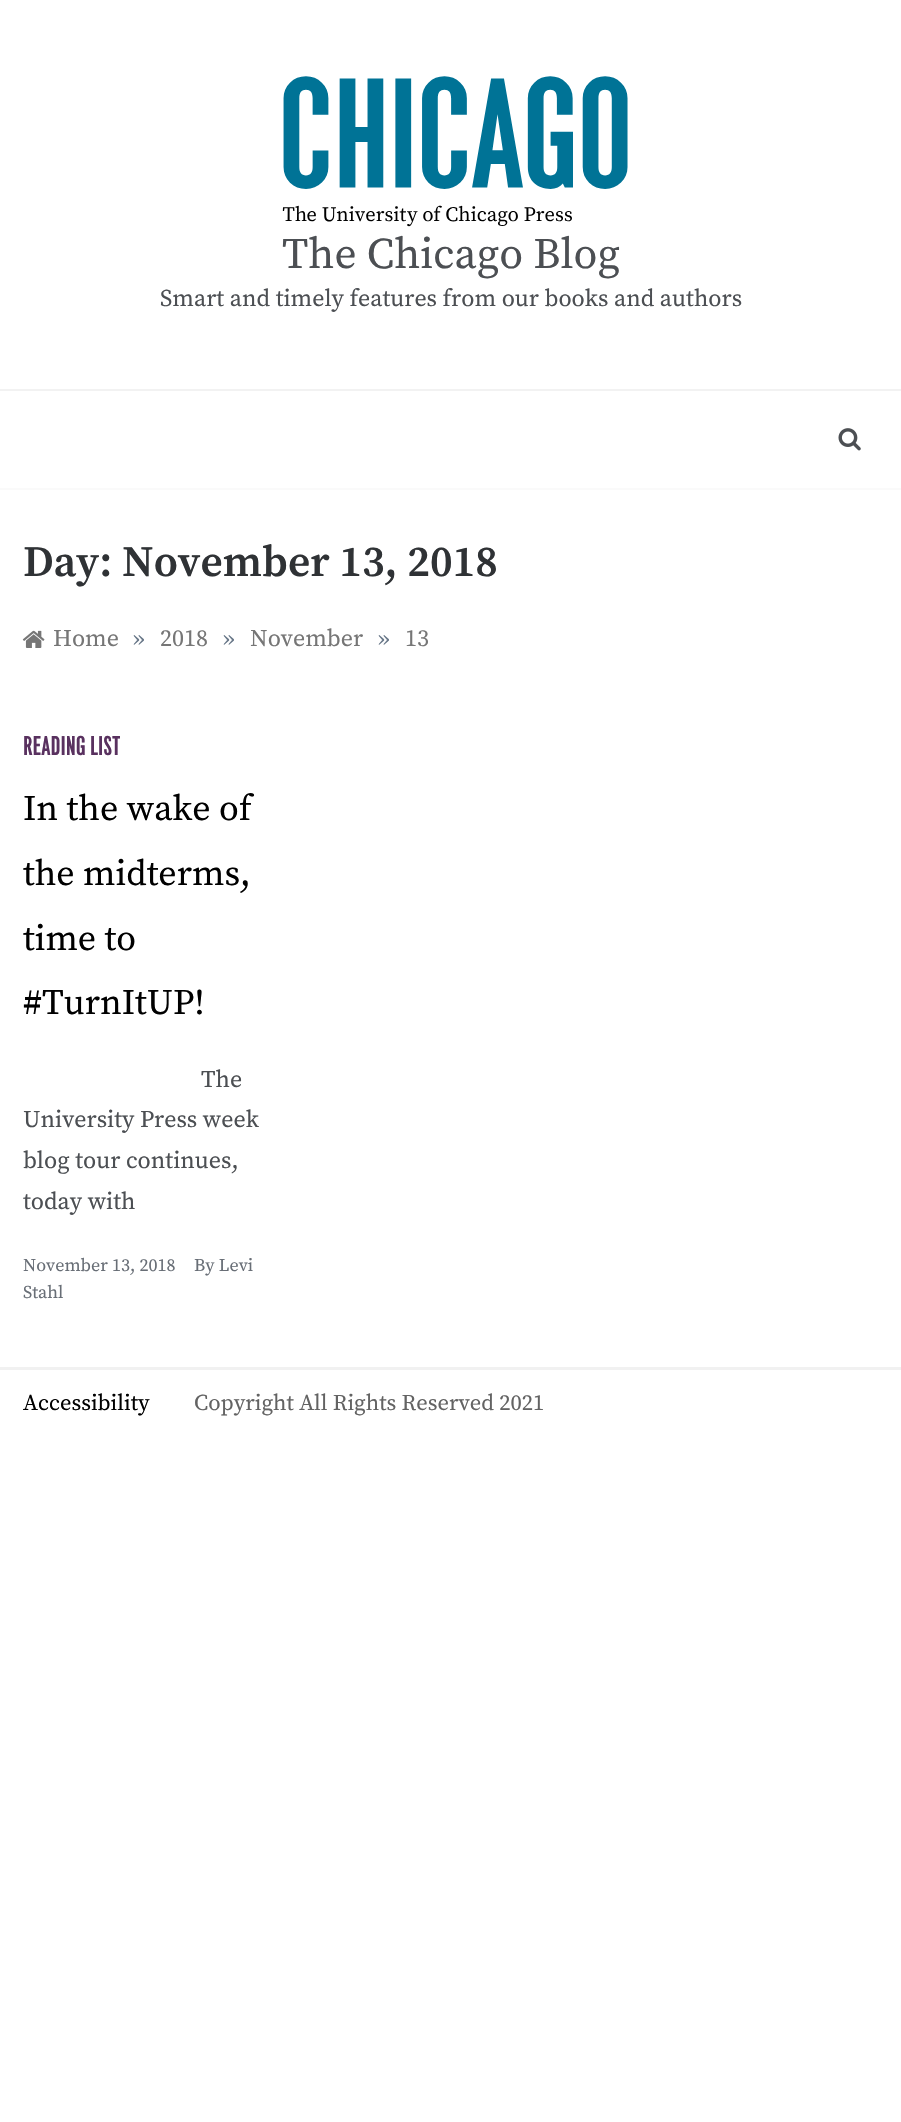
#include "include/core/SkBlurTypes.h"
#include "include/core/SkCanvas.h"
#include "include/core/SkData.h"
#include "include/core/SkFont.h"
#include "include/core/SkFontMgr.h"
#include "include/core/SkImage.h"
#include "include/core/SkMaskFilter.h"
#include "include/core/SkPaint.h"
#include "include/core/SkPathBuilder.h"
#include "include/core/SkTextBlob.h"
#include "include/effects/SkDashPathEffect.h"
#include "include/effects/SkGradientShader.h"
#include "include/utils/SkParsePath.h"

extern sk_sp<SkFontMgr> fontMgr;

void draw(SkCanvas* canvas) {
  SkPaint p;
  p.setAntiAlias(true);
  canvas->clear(SK_ColorWHITE);
  p.setColor(SkColorSetRGB(250, 250, 250));
  canvas->drawRect(SkRect::MakeLTRB(0, 488, 901, 490), p);
  p.setColor(SkColorSetRGB(242, 242, 242));
  canvas->drawRect(SkRect::MakeLTRB(0, 389, 901, 391), p);
  canvas->drawImageRect(SkImages::DeferredFromEncodedData(SkData::MakeFromFileName("images/1.png")), SkRect::MakeLTRB(282, 76, 628, 227), SkSamplingOptions());
  canvas->drawImageRect(SkImages::DeferredFromEncodedData(SkData::MakeFromFileName("images/2.png")), SkRect::MakeLTRB(838, 428, 861, 451), SkSamplingOptions());
  canvas->drawImageRect(SkImages::DeferredFromEncodedData(SkData::MakeFromFileName("images/3.png")), SkRect::MakeLTRB(22, 630, 45, 648), SkSamplingOptions());
  p.setColor(SkColorSetRGB(241, 241, 241));
  canvas->drawRect(SkRect::MakeLTRB(0, 1367, 901, 1370), p);
  SkFont font1(fontMgr->matchFamilyStyle("Source Serif Pro", SkFontStyle::Normal()), 43.5f);
  font1.setSubpixel(true);
  p.setColor(SkColorSetRGB(76, 79, 83));
  canvas->drawString("The Chicago Blog", 282, 268, font1, p);
  SkFont font2(fontMgr->matchFamilyStyle("Source Serif Pro", SkFontStyle::Normal()), 24);
  font2.setSubpixel(true);
  canvas->drawString("Smart and timely features from our books and authors", 160, 306, font2, p);
  SkFont font3(fontMgr->matchFamilyStyle("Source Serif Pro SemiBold", SkFontStyle(600, SkFontStyle::kNormal_Width, SkFontStyle::kUpright_Slant)), 43.5f);
  font3.setSubpixel(true);
  p.setColor(SkColorSetRGB(47, 50, 53));
  canvas->drawString("Day: November 13, 2018", 23, 576, font3, p);
  p.setColor(SkColorSetRGB(118, 118, 118));
  canvas->drawString("Home", 53, 646, font2, p);
  p.setColor(SkColorSetRGB(105, 120, 137));
  canvas->drawString("»", 133, 646, font2, p);
  p.setColor(SkColorSetRGB(118, 118, 118));
  canvas->drawString("2018", 160, 646, font2, p);
  p.setColor(SkColorSetRGB(105, 120, 137));
  canvas->drawString("»", 223, 646, font2, p);
  p.setColor(SkColorSetRGB(118, 118, 118));
  canvas->drawString("November", 250, 646, font2, p);
  p.setColor(SkColorSetRGB(105, 120, 137));
  canvas->drawString("»", 378, 646, font2, p);
  p.setColor(SkColorSetRGB(118, 118, 118));
  canvas->drawString("13", 405, 646, font2, p);
  SkFont font4(fontMgr->matchFamilyStyle("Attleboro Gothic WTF", SkFontStyle::Normal()), 21);
  font4.setSubpixel(true);
  p.setColor(SkColorSetRGB(89, 49, 95));
  canvas->drawString("READING LIST", 23, 755, font4, p);
  SkFont font5(fontMgr->matchFamilyStyle("Source Serif Pro", SkFontStyle::Normal()), 36);
  font5.setSubpixel(true);
  p.setColor(SK_ColorBLACK);
  canvas->drawString("In the wake of", 23, 820, font5, p);
  canvas->drawString("the midterms,", 23, 885, font5, p);
  canvas->drawString("time to", 23, 950, font5, p);
  canvas->drawString("#TurnItUP!", 23, 1014, font5, p);
  p.setColor(SkColorSetRGB(76, 79, 83));
  canvas->drawString("The", 201, 1087, font2, p);
  canvas->drawString("University Press week", 23, 1127, font2, p);
  canvas->drawString("blog tour continues,", 23, 1168, font2, p);
  canvas->drawString("today with", 23, 1209, font2, p);
  SkFont font6(fontMgr->matchFamilyStyle("Source Serif Pro", SkFontStyle::Normal()), 18);
  font6.setSubpixel(true);
  p.setColor(SkColorSetRGB(104, 110, 118));
  canvas->drawString("November 13, 2018", 23, 1271, font6, p);
  canvas->drawString("By Levi", 194, 1271, font6, p);
  canvas->drawString("Stahl", 23, 1298, font6, p);
  SkFont font7(fontMgr->matchFamilyStyle("Source Serif Pro", SkFontStyle::Normal()), 22.5f);
  font7.setSubpixel(true);
  p.setColor(SK_ColorBLACK);
  canvas->drawString("Accessibility", 23, 1410, font7, p);
  p.setColor(SkColorSetRGB(99, 99, 99));
  canvas->drawString("Copyright All Rights Reserved 2021", 194, 1410, font7, p);
}
